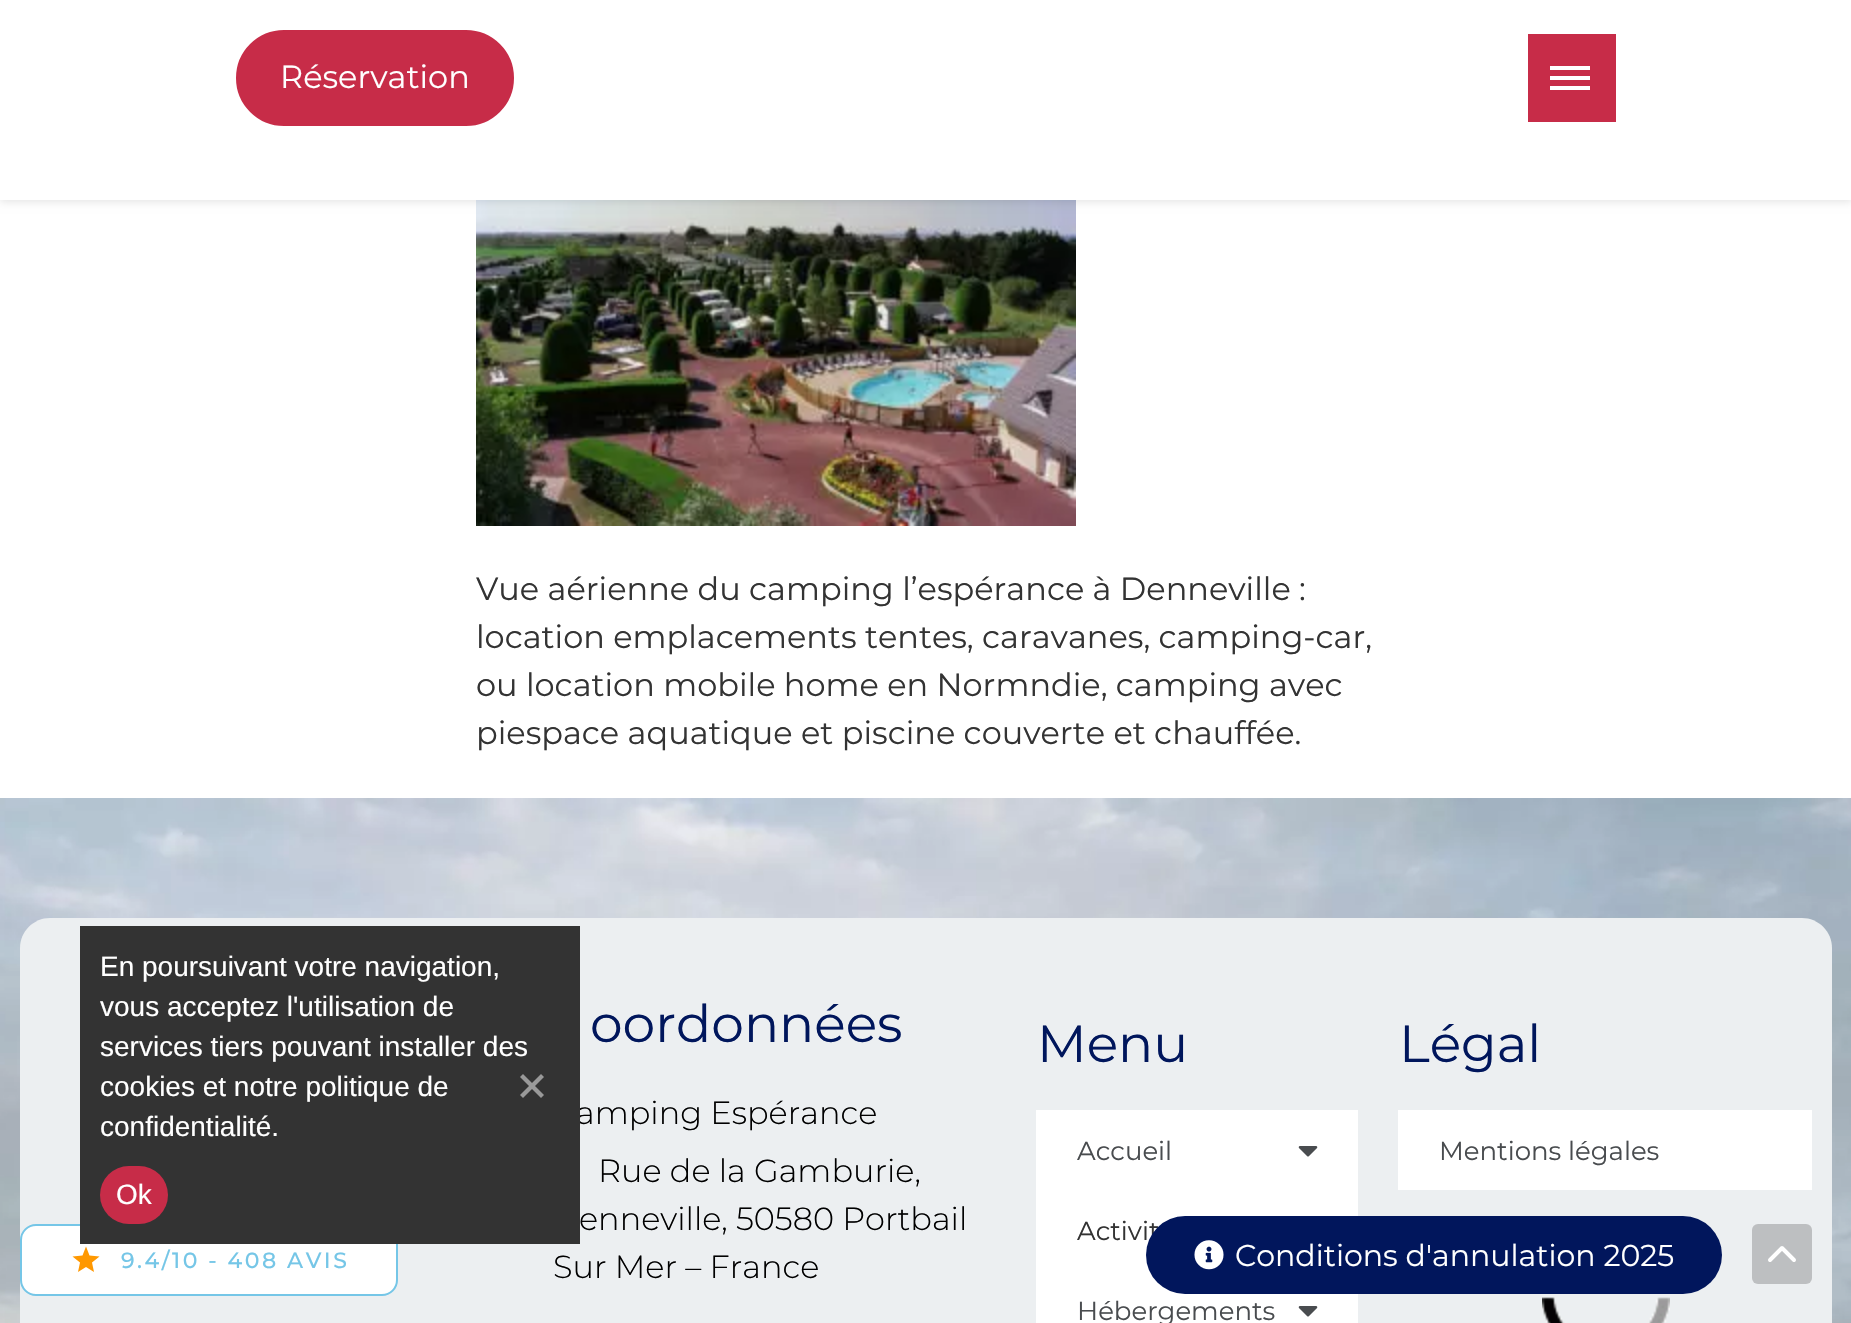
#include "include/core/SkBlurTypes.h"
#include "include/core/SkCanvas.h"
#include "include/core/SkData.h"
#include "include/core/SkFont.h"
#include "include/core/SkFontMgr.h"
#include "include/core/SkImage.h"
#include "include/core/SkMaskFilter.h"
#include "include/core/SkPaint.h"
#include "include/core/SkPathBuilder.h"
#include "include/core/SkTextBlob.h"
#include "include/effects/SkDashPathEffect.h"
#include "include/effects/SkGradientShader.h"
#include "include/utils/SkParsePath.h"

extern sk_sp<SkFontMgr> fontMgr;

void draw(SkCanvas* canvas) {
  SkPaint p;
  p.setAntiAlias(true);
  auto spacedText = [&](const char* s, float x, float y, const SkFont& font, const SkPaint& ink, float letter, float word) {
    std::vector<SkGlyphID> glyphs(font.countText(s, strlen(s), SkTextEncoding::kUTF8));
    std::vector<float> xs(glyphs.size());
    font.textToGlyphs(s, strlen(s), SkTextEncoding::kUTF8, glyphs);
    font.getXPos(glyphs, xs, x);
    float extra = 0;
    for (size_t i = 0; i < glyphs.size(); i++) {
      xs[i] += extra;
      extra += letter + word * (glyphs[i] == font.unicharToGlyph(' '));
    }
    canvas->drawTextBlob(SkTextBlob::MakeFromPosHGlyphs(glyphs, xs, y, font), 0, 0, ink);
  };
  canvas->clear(SK_ColorWHITE);
  canvas->drawImageRect(SkImages::DeferredFromEncodedData(SkData::MakeFromFileName("images/1.png")), SkRect::MakeLTRB(476, 200, 1076, 526), SkSamplingOptions());
  p.setColor(SkColorSetARGB(26, 0, 0, 0));
  p.setMaskFilter(SkMaskFilter::MakeBlur(kNormal_SkBlurStyle, 4));
  canvas->drawRect(SkRect::MakeLTRB(0, 2, 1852, 202), p);
  p.setMaskFilter(nullptr);
  p.setColor(SK_ColorWHITE);
  canvas->drawRect(SkRect::MakeLTRB(0, 0, 1851, 200), p);
  p.setColor(SkColorSetRGB(199, 44, 72));
  canvas->drawRoundRect(SkRect::MakeLTRB(238, 32, 512, 124), 46, 46, p);
  p.setStyle(SkPaint::kStroke_Style);
  p.setStrokeWidth(4);
  canvas->drawRoundRect(SkRect::MakeLTRB(238, 32, 512, 124), 46, 46, p);
  p.setStyle(SkPaint::kFill_Style);
  canvas->drawRect(SkRect::MakeLTRB(1528, 34, 1616, 122), p);
  p.setColor(SK_ColorWHITE);
  canvas->drawRect(SkRect::MakeLTRB(1550, 76, 1590, 80), p);
  canvas->drawRect(SkRect::MakeLTRB(1550, 66, 1590, 70), p);
  canvas->drawRect(SkRect::MakeLTRB(1550, 86, 1590, 90), p);
  canvas->drawImageRect(SkImages::DeferredFromEncodedData(SkData::MakeFromFileName("images/2.png")), SkRect::MakeLTRB(0, 798, 1851, 1323), SkSamplingOptions());
  p.setColor(SkColorSetRGB(236, 239, 241));
  canvas->drawPath(SkPathBuilder().moveTo(50, 918).lineTo(1802, 918).cubicTo(1818.5f, 918, 1832, 931.5f, 1832, 948).lineTo(1832, 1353).lineTo(20, 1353).lineTo(20, 948).cubicTo(20, 931.5f, 33.5f, 918, 50, 918).close().detach(), p);
  p.setColor(SK_ColorWHITE);
  canvas->drawRect(SkRect::MakeLTRB(1036, 1110, 1358, 1323), p);
  canvas->drawImageRect(SkImages::DeferredFromEncodedData(SkData::MakeFromFileName("images/3.png")), SkRect::MakeLTRB(1298, 1146, 1318, 1157), SkSamplingOptions());
  canvas->drawImageRect(SkImages::DeferredFromEncodedData(SkData::MakeFromFileName("images/3.png")), SkRect::MakeLTRB(1298, 1306, 1318, 1317), SkSamplingOptions());
  canvas->drawRect(SkRect::MakeLTRB(1398, 1110, 1812, 1190), p);
  canvas->drawImageRect(SkImages::DeferredFromEncodedData(SkData::MakeFromFileName("images/4.png")), SkRect::MakeLTRB(1542, 1297, 1670, 1323), SkSamplingOptions());
  canvas->drawRoundRect(SkRect::MakeLTRB(21, 1225, 397, 1295), 15, 15, p);
  p.setStyle(SkPaint::kStroke_Style);
  p.setStrokeWidth(2);
  p.setColor(SkColorSetRGB(117, 198, 231));
  canvas->drawRoundRect(SkRect::MakeLTRB(21, 1225, 397, 1295), 15, 15, p);
  p.setStyle(SkPaint::kFill_Style);
  p.setColor(SkColorSetRGB(255, 152, 0));
  canvas->drawPath(SkPathBuilder().moveTo(86, 1267).lineTo(94, 1272).lineTo(92, 1262.5f).lineTo(99.5f, 1256.5f).lineTo(89.5f, 1255.5f).lineTo(86, 1246.5f).lineTo(82.5f, 1255.5f).lineTo(72.5f, 1256.5f).lineTo(80, 1262.5f).lineTo(78, 1272).close().detach(), p);
  p.setColor(SkColorSetRGB(189, 191, 193));
  canvas->drawRoundRect(SkRect::MakeLTRB(1752, 1224, 1812, 1284), 6, 6, p);
  p.setStyle(SkPaint::kStroke_Style);
  p.setStrokeWidth(4);
  p.setStrokeCap(SkPaint::kRound_Cap);
  p.setStrokeJoin(SkPaint::kRound_Join);
  p.setColor(SK_ColorWHITE);
  canvas->drawPath(SkPathBuilder().moveTo(1794, 1260).lineTo(1782, 1248).lineTo(1770, 1260).detach(), p);
  SkFont font1(fontMgr->matchFamilyStyle("Montserrat", SkFontStyle::Normal()), 32);
  font1.setSubpixel(true);
  p.setStyle(SkPaint::kFill_Style);
  canvas->drawString("Réservation", 280, 88, font1, p);
  p.setColor(SkColorSetRGB(51, 51, 51));
  canvas->drawString("Vue aérienne du camping l’espérance à Denneville :", 476, 600, font1, p);
  canvas->drawString("location emplacements tentes, caravanes, camping-car,", 476, 648, font1, p);
  canvas->drawString("ou location mobile home en Normndie, camping avec", 476, 696, font1, p);
  canvas->drawString("piespace aquatique et piscine couverte et chauffée.", 476, 744, font1, p);
  SkFont font2(fontMgr->matchFamilyStyle("Montserrat", SkFontStyle::Normal()), 52);
  font2.setSubpixel(true);
  p.setColor(SkColorSetRGB(0, 22, 92));
  canvas->drawString("oordonnées", 590, 1042, font2, p);
  SkFont font3(fontMgr->matchFamilyStyle("Montserrat", SkFontStyle(300, SkFontStyle::kNormal_Width, SkFontStyle::kUpright_Slant)), 32);
  font3.setSubpixel(true);
  p.setColor(SK_ColorBLACK);
  canvas->drawString("amping Espérance", 576, 1124, font3, p);
  canvas->drawString("Rue de la Gamburie,", 598, 1182, font3, p);
  canvas->drawString("enneville, 50580 Portbail", 579, 1230, font3, p);
  canvas->drawString("Sur Mer – France", 553, 1278, font3, p);
  p.setColor(SkColorSetRGB(0, 22, 92));
  canvas->drawString("Menu", 1037, 1062, font2, p);
  SkFont font4(fontMgr->matchFamilyStyle("Montserrat", SkFontStyle::Normal()), 26);
  font4.setSubpixel(true);
  p.setColor(SkColorSetRGB(73, 76, 79));
  canvas->drawString("Accueil", 1077, 1160, font4, p);
  p.setColor(SkColorSetRGB(51, 51, 51));
  canvas->drawString("Activit", 1077, 1240, font4, p);
  p.setColor(SkColorSetRGB(73, 76, 79));
  canvas->drawString("Hébergements", 1077, 1320, font4, p);
  p.setColor(SkColorSetRGB(0, 22, 92));
  canvas->drawString("Légal", 1399, 1062, font2, p);
  p.setColor(SkColorSetRGB(73, 76, 79));
  canvas->drawString("Mentions légales", 1439, 1160, font4, p);
  p.setColor(SkColorSetRGB(1, 22, 92));
  canvas->drawRoundRect(SkRect::MakeLTRB(1146, 1216, 1722, 1294), 39, 39, p);
  canvas->drawImageRect(SkImages::DeferredFromEncodedData(SkData::MakeFromFileName("images/5.png")), SkRect::MakeLTRB(1194, 1240, 1224, 1270), SkSamplingOptions());
  SkFont font5(fontMgr->matchFamilyStyle("Montserrat", SkFontStyle::Normal()), 30);
  font5.setSubpixel(true);
  p.setColor(SK_ColorWHITE);
  canvas->drawString("Conditions d'annulation 2025", 1235, 1266, font5, p);
  p.setColor(SkColorSetRGB(51, 51, 51));
  canvas->drawRect(SkRect::MakeLTRB(80, 926, 580, 1244), p);
  SkFont font6(fontMgr->matchFamilyStyle("Liberation Sans", SkFontStyle::Normal()), 28);
  font6.setSubpixel(true);
  p.setColor(SK_ColorWHITE);
  canvas->drawString("En poursuivant votre navigation,", 100, 976, font6, p);
  canvas->drawString("vous acceptez l'utilisation de", 100, 1016, font6, p);
  canvas->drawString("services tiers pouvant installer des", 100, 1056, font6, p);
  canvas->drawString("cookies et notre politique de", 100, 1096, font6, p);
  canvas->drawString("confidentialité.", 100, 1136, font6, p);
  p.setColor(SkColorSetRGB(153, 153, 153));
  canvas->drawPath(SkPathBuilder().moveTo(541, 1074).lineTo(544, 1077).lineTo(523, 1098).lineTo(520, 1095).close().detach(), p);
  canvas->drawPath(SkPathBuilder().moveTo(520, 1077).lineTo(523, 1074).lineTo(544, 1095).lineTo(541, 1098).close().detach(), p);
  p.setColor(SkColorSetRGB(199, 44, 72));
  canvas->drawRoundRect(SkRect::MakeLTRB(100, 1166, 168, 1224), 29, 29, p);
  p.setColor(SK_ColorWHITE);
  canvas->drawString("Ok", 116, 1204, font6, p);
  SkFont font7(fontMgr->matchFamilyStyle("Montserrat", SkFontStyle(500, SkFontStyle::kNormal_Width, SkFontStyle::kUpright_Slant)), 22);
  font7.setSubpixel(true);
  p.setColor(SkColorSetRGB(117, 198, 231));
  spacedText("9.4/10 - 408 AVIS", 121, 1268, font7, p, 2.5f, 0);
}
